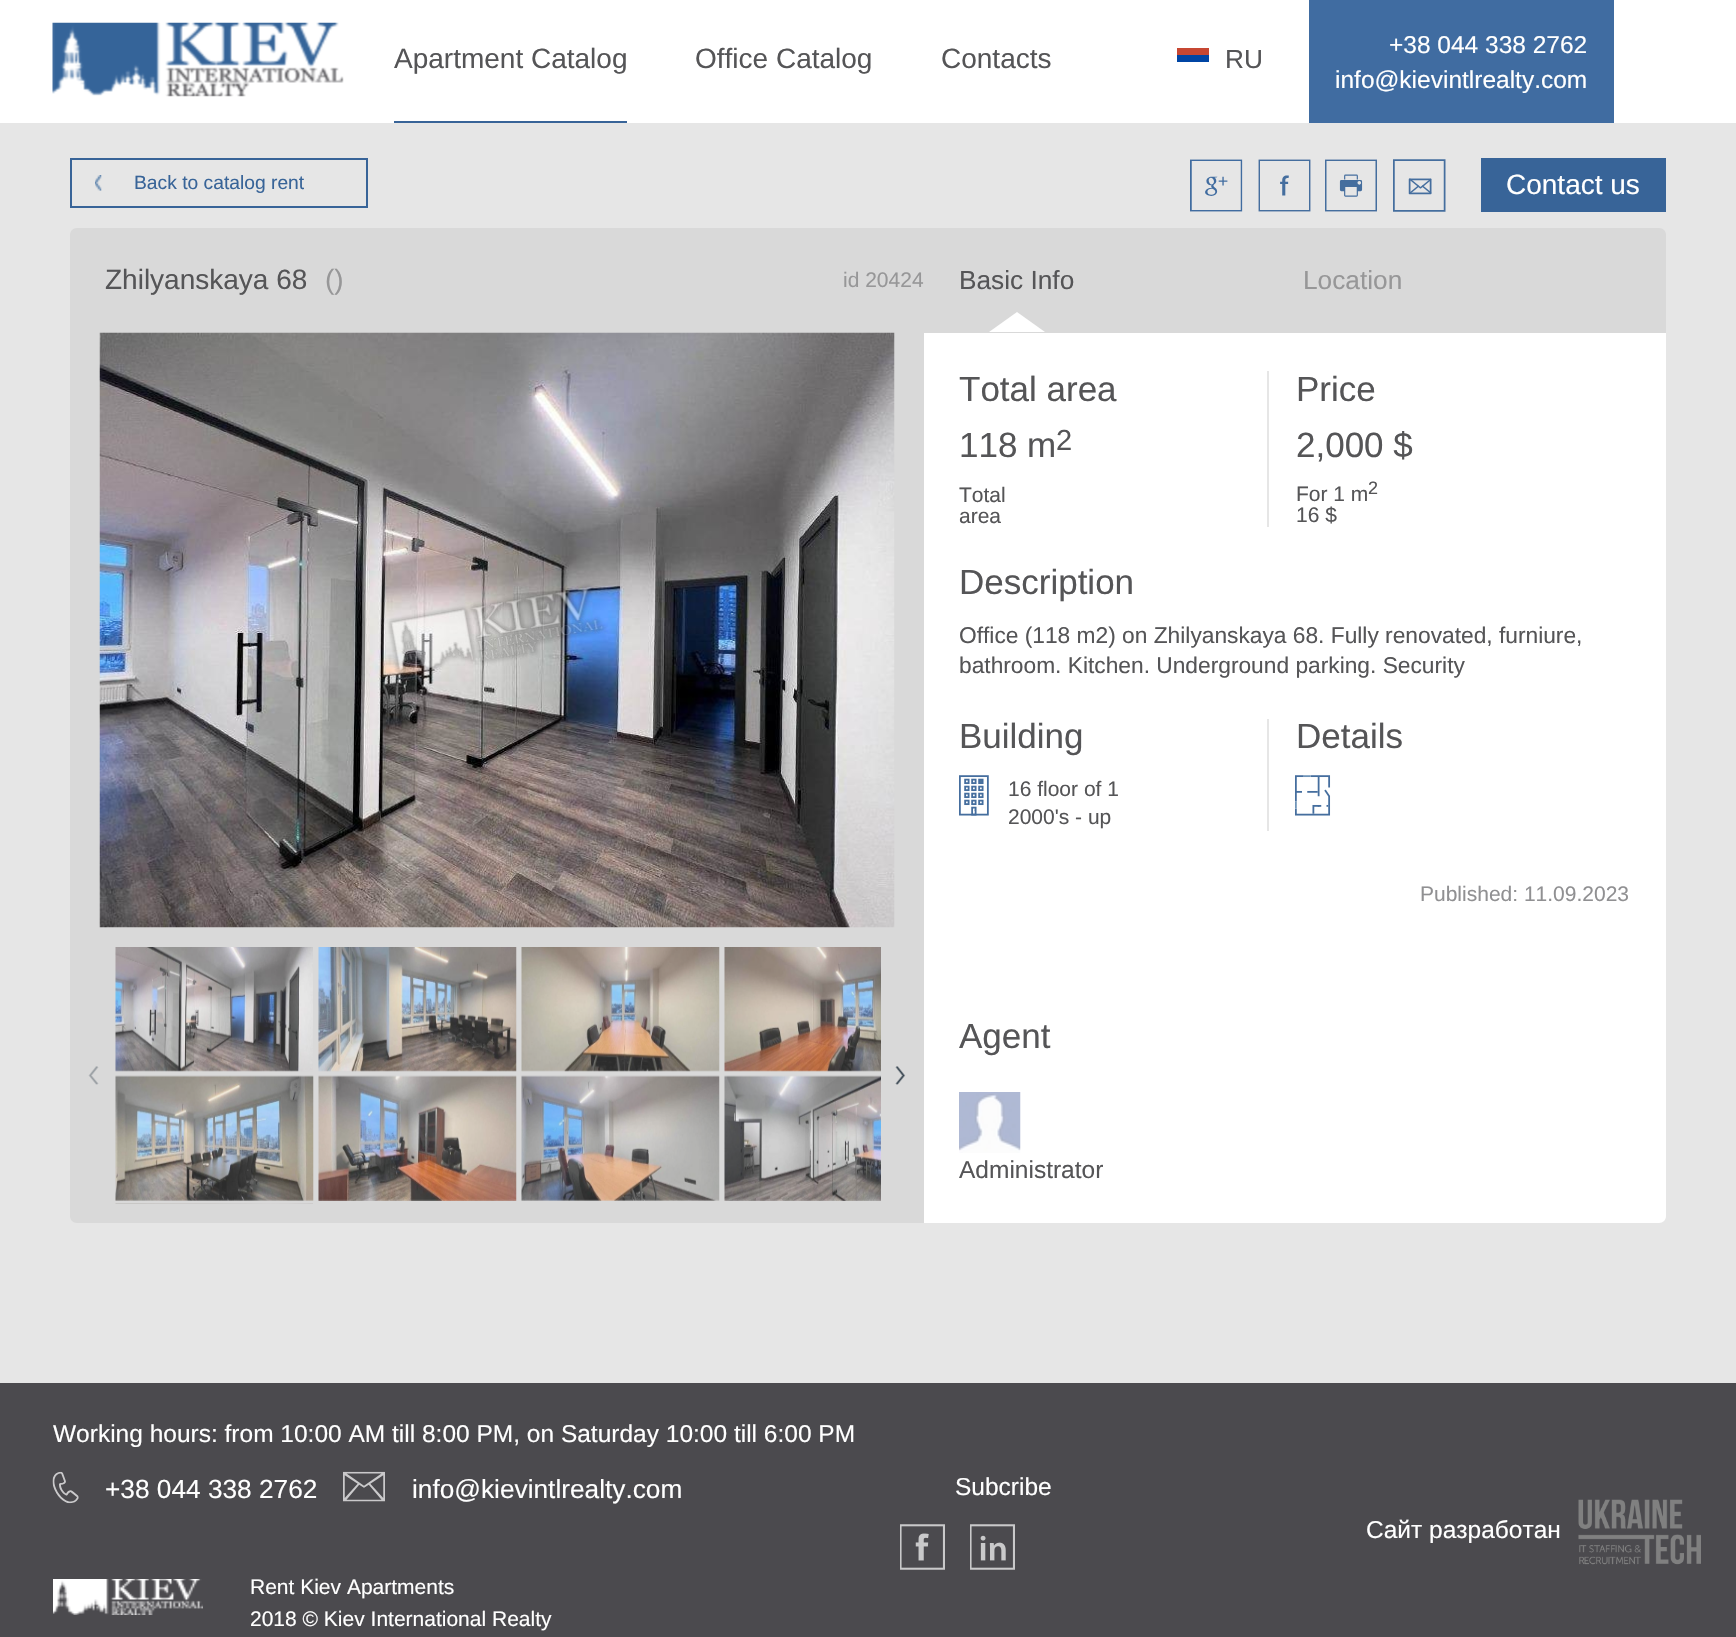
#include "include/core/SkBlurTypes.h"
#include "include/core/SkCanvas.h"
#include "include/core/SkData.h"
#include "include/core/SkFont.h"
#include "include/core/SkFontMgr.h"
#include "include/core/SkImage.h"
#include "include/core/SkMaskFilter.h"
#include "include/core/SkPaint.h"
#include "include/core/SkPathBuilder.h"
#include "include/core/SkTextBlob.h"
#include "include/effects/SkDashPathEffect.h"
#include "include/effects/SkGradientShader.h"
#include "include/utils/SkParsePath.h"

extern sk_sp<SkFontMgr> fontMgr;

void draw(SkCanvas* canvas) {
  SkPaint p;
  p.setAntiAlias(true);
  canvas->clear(SkColorSetRGB(230, 230, 230));
  p.setColor(SK_ColorWHITE);
  canvas->drawRect(SkRect::MakeLTRB(0, 0, 1736, 123), p);
  canvas->drawImageRect(SkImages::DeferredFromEncodedData(SkData::MakeFromFileName("images/1.png")), SkRect::MakeLTRB(52, 22, 344, 97), SkSamplingOptions());
  p.setColor(SkColorSetRGB(56, 100, 152));
  canvas->drawRect(SkRect::MakeLTRB(394, 121, 627, 123), p);
  p.setColor(SkColorSetRGB(0, 69, 164));
  canvas->drawRect(SkRect::MakeLTRB(1177, 55, 1209, 62), p);
  p.setColor(SkColorSetRGB(199, 71, 50));
  canvas->drawRect(SkRect::MakeLTRB(1177, 48, 1209, 55), p);
  p.setColor(SkColorSetRGB(64, 108, 161));
  canvas->drawRect(SkRect::MakeLTRB(1309, 0, 1614, 123), p);
  p.setStyle(SkPaint::kStroke_Style);
  p.setStrokeWidth(2);
  p.setColor(SkColorSetRGB(56, 100, 152));
  canvas->drawRect(SkRect::MakeLTRB(71, 159, 367, 207), p);
  canvas->drawImageRect(SkImages::DeferredFromEncodedData(SkData::MakeFromFileName("images/2.png")), SkRect::MakeLTRB(95, 175, 102, 191), SkSamplingOptions());
  canvas->drawImageRect(SkImages::DeferredFromEncodedData(SkData::MakeFromFileName("images/3.png")), SkRect::MakeLTRB(1190, 159, 1243, 212), SkSamplingOptions());
  canvas->drawImageRect(SkImages::DeferredFromEncodedData(SkData::MakeFromFileName("images/4.png")), SkRect::MakeLTRB(1258, 159, 1311, 212), SkSamplingOptions());
  canvas->drawImageRect(SkImages::DeferredFromEncodedData(SkData::MakeFromFileName("images/5.png")), SkRect::MakeLTRB(1325, 159, 1377, 212), SkSamplingOptions());
  canvas->drawImageRect(SkImages::DeferredFromEncodedData(SkData::MakeFromFileName("images/6.png")), SkRect::MakeLTRB(1393, 159, 1446, 212), SkSamplingOptions());
  p.setStyle(SkPaint::kFill_Style);
  canvas->drawRect(SkRect::MakeLTRB(1481, 158, 1666, 212), p);
  p.setColor(SkColorSetRGB(217, 217, 217));
  canvas->drawPath(SkPathBuilder().moveTo(77, 228).lineTo(1659, 228).cubicTo(1663, 228, 1666, 231, 1666, 235).lineTo(1666, 333).lineTo(70, 333).lineTo(70, 235).cubicTo(70, 231, 73, 228, 77, 228).close().detach(), p);
  p.setColor(SK_ColorWHITE);
  canvas->drawPath(SkPathBuilder().moveTo(1045, 332).lineTo(989, 332).lineTo(1017, 312).close().detach(), p);
  p.setColor(SkColorSetRGB(217, 217, 217));
  canvas->drawPath(SkPathBuilder().moveTo(70, 333).lineTo(924, 333).lineTo(924, 1223).lineTo(77, 1223).cubicTo(73, 1223, 70, 1220, 70, 1216).close().detach(), p);
  canvas->drawImageRect(SkImages::DeferredFromEncodedData(SkData::MakeFromFileName("images/7.png")), SkRect::MakeLTRB(99, 332, 895, 928), SkSamplingOptions());
  canvas->drawImageRect(SkImages::DeferredFromEncodedData(SkData::MakeFromFileName("images/8.png")), SkRect::MakeLTRB(88, 1066, 99, 1085), SkSamplingOptions());
  canvas->drawImageRect(SkImages::DeferredFromEncodedData(SkData::MakeFromFileName("images/9.png")), SkRect::MakeLTRB(115, 947, 313, 1072), SkSamplingOptions());
  canvas->drawImageRect(SkImages::DeferredFromEncodedData(SkData::MakeFromFileName("images/10.png")), SkRect::MakeLTRB(115, 1075, 314, 1201), SkSamplingOptions());
  canvas->drawImageRect(SkImages::DeferredFromEncodedData(SkData::MakeFromFileName("images/11.png")), SkRect::MakeLTRB(318, 947, 517, 1072), SkSamplingOptions());
  canvas->drawImageRect(SkImages::DeferredFromEncodedData(SkData::MakeFromFileName("images/12.png")), SkRect::MakeLTRB(318, 1075, 517, 1201), SkSamplingOptions());
  canvas->drawImageRect(SkImages::DeferredFromEncodedData(SkData::MakeFromFileName("images/13.png")), SkRect::MakeLTRB(521, 947, 720, 1072), SkSamplingOptions());
  canvas->drawImageRect(SkImages::DeferredFromEncodedData(SkData::MakeFromFileName("images/14.png")), SkRect::MakeLTRB(521, 1075, 720, 1201), SkSamplingOptions());
  canvas->drawImageRect(SkImages::DeferredFromEncodedData(SkData::MakeFromFileName("images/15.png")), SkRect::MakeLTRB(724, 947, 881, 1072), SkSamplingOptions());
  canvas->drawImageRect(SkImages::DeferredFromEncodedData(SkData::MakeFromFileName("images/16.png")), SkRect::MakeLTRB(724, 1075, 881, 1201), SkSamplingOptions());
  canvas->drawImageRect(SkImages::DeferredFromEncodedData(SkData::MakeFromFileName("images/17.png")), SkRect::MakeLTRB(115, 1203, 313, 1204), SkSamplingOptions());
  canvas->drawImageRect(SkImages::DeferredFromEncodedData(SkData::MakeFromFileName("images/18.png")), SkRect::MakeLTRB(895, 1066, 906, 1085), SkSamplingOptions());
  p.setColor(SK_ColorWHITE);
  canvas->drawPath(SkPathBuilder().moveTo(924, 333).lineTo(1666, 333).lineTo(1666, 1216).cubicTo(1666, 1220, 1663, 1223, 1659, 1223).lineTo(924, 1223).close().detach(), p);
  p.setColor(SkColorSetRGB(230, 230, 230));
  canvas->drawRect(SkRect::MakeLTRB(1267, 371, 1269, 527), p);
  canvas->drawImageRect(SkImages::DeferredFromEncodedData(SkData::MakeFromFileName("images/19.png")), SkRect::MakeLTRB(959, 775, 989, 816), SkSamplingOptions());
  canvas->drawRect(SkRect::MakeLTRB(1267, 719, 1269, 831), p);
  canvas->drawImageRect(SkImages::DeferredFromEncodedData(SkData::MakeFromFileName("images/20.png")), SkRect::MakeLTRB(1295, 775, 1331, 816), SkSamplingOptions());
  canvas->drawImageRect(SkImages::DeferredFromEncodedData(SkData::MakeFromFileName("images/21.png")), SkRect::MakeLTRB(959, 1092, 1021, 1153), SkSamplingOptions());
  p.setColor(SkColorSetRGB(75, 74, 78));
  canvas->drawRect(SkRect::MakeLTRB(0, 1383, 1736, 1637), p);
  canvas->drawImageRect(SkImages::DeferredFromEncodedData(SkData::MakeFromFileName("images/22.png")), SkRect::MakeLTRB(52, 1471, 79, 1504), SkSamplingOptions());
  canvas->drawImageRect(SkImages::DeferredFromEncodedData(SkData::MakeFromFileName("images/23.png")), SkRect::MakeLTRB(343, 1471, 385, 1502), SkSamplingOptions());
  canvas->drawImageRect(SkImages::DeferredFromEncodedData(SkData::MakeFromFileName("images/24.png")), SkRect::MakeLTRB(900, 1524, 945, 1570), SkSamplingOptions());
  canvas->drawImageRect(SkImages::DeferredFromEncodedData(SkData::MakeFromFileName("images/25.png")), SkRect::MakeLTRB(970, 1524, 1015, 1570), SkSamplingOptions());
  canvas->drawImageRect(SkImages::DeferredFromEncodedData(SkData::MakeFromFileName("images/26.png")), SkRect::MakeLTRB(1578, 1499, 1701, 1565), SkSamplingOptions());
  canvas->drawImageRect(SkImages::DeferredFromEncodedData(SkData::MakeFromFileName("images/27.png")), SkRect::MakeLTRB(53, 1579, 203, 1615), SkSamplingOptions());
  SkFont font1(fontMgr->matchFamilyStyle("Liberation Sans", SkFontStyle::Normal()), 28);
  font1.setSubpixel(true);
  p.setColor(SkColorSetRGB(85, 85, 87));
  canvas->drawString("Apartment Catalog", 394, 68, font1, p);
  canvas->drawString("Office Catalog", 695, 68, font1, p);
  canvas->drawString("Contacts", 941, 68, font1, p);
  SkFont font2(fontMgr->matchFamilyStyle("Liberation Sans", SkFontStyle::Normal()), 26.25f);
  font2.setSubpixel(true);
  canvas->drawString("RU", 1225, 68, font2, p);
  SkFont font3(fontMgr->matchFamilyStyle("Liberation Sans", SkFontStyle::Normal()), 24.5f);
  font3.setSubpixel(true);
  p.setColor(SK_ColorWHITE);
  canvas->drawString("+38 044 338 2762", 1389, 53, font3, p);
  canvas->drawString("info@kievintlrealty.com", 1335, 88, font3, p);
  SkFont font4(fontMgr->matchFamilyStyle("Liberation Sans", SkFontStyle::Normal()), 19.25f);
  font4.setSubpixel(true);
  p.setColor(SkColorSetRGB(56, 100, 152));
  canvas->drawString("Back to catalog rent", 134, 189, font4, p);
  p.setColor(SK_ColorWHITE);
  canvas->drawString("Contact us", 1506, 194, font1, p);
  p.setColor(SkColorSetRGB(85, 85, 87));
  canvas->drawString("Zhilyanskaya 68", 105, 289, font1, p);
  p.setColor(SkColorSetRGB(151, 151, 152));
  canvas->drawString("()", 325, 289, font1, p);
  SkFont font5(fontMgr->matchFamilyStyle("Liberation Sans", SkFontStyle::Normal()), 21);
  font5.setSubpixel(true);
  canvas->drawString("id 20424", 843, 287, font5, p);
  p.setColor(SkColorSetRGB(85, 85, 87));
  canvas->drawString("Basic Info", 959, 289, font2, p);
  p.setColor(SkColorSetRGB(151, 151, 152));
  canvas->drawString("Location", 1303, 289, font2, p);
  SkFont font6(fontMgr->matchFamilyStyle("Liberation Sans", SkFontStyle::Normal()), 35);
  font6.setSubpixel(true);
  p.setColor(SkColorSetRGB(85, 85, 87));
  canvas->drawString("Total area", 959, 401, font6, p);
  canvas->drawString("118 m", 959, 457, font6, p);
  SkFont font7(fontMgr->matchFamilyStyle("Liberation Sans", SkFontStyle::Normal()), 29);
  font7.setSubpixel(true);
  canvas->drawString("2", 1056, 450, font7, p);
  canvas->drawString("Total", 959, 502, font5, p);
  canvas->drawString("area", 959, 523, font5, p);
  canvas->drawString("Price", 1296, 401, font6, p);
  canvas->drawString("2,000 $", 1296, 457, font6, p);
  canvas->drawString("For 1 m", 1296, 501, font5, p);
  SkFont font8(fontMgr->matchFamilyStyle("Liberation Sans", SkFontStyle::Normal()), 18);
  font8.setSubpixel(true);
  canvas->drawString("2", 1368, 494, font8, p);
  canvas->drawString("16 $", 1296, 522, font5, p);
  canvas->drawString("Description", 959, 594, font6, p);
  SkFont font9(fontMgr->matchFamilyStyle("Liberation Sans", SkFontStyle::Normal()), 22.75f);
  font9.setSubpixel(true);
  canvas->drawString("Office (118 m2) on Zhilyanskaya 68. Fully renovated, furniure,", 959, 643, font9, p);
  canvas->drawString("bathroom. Kitchen. Underground parking. Security", 959, 673, font9, p);
  canvas->drawString("Building", 959, 748, font6, p);
  canvas->drawString("16 floor of 1", 1008, 796, font5, p);
  canvas->drawString("2000's - up", 1008, 824, font5, p);
  canvas->drawString("Details", 1296, 748, font6, p);
  p.setColor(SkColorSetRGB(144, 144, 146));
  canvas->drawString("Published: 11.09.2023", 1420, 901, font5, p);
  p.setColor(SkColorSetRGB(85, 85, 87));
  canvas->drawString("Agent", 959, 1048, font6, p);
  canvas->drawString("Administrator", 959, 1178, font3, p);
  p.setColor(SK_ColorWHITE);
  canvas->drawString("Working hours: from 10:00 AM till 8:00 PM, on Saturday 10:00 till 6:00 PM", 53, 1442, font3, p);
  canvas->drawString("+38 044 338 2762", 105, 1498, font2, p);
  canvas->drawString("info@kievintlrealty.com", 412, 1498, font2, p);
  canvas->drawString("Subcribe", 955, 1495, font3, p);
  canvas->drawString("Сайт разработан", 1366, 1538, font3, p);
  canvas->drawString("Rent Kiev Apartments", 250, 1594, font5, p);
  canvas->drawString("2018 © Kiev International Realty", 250, 1626, font5, p);
}
